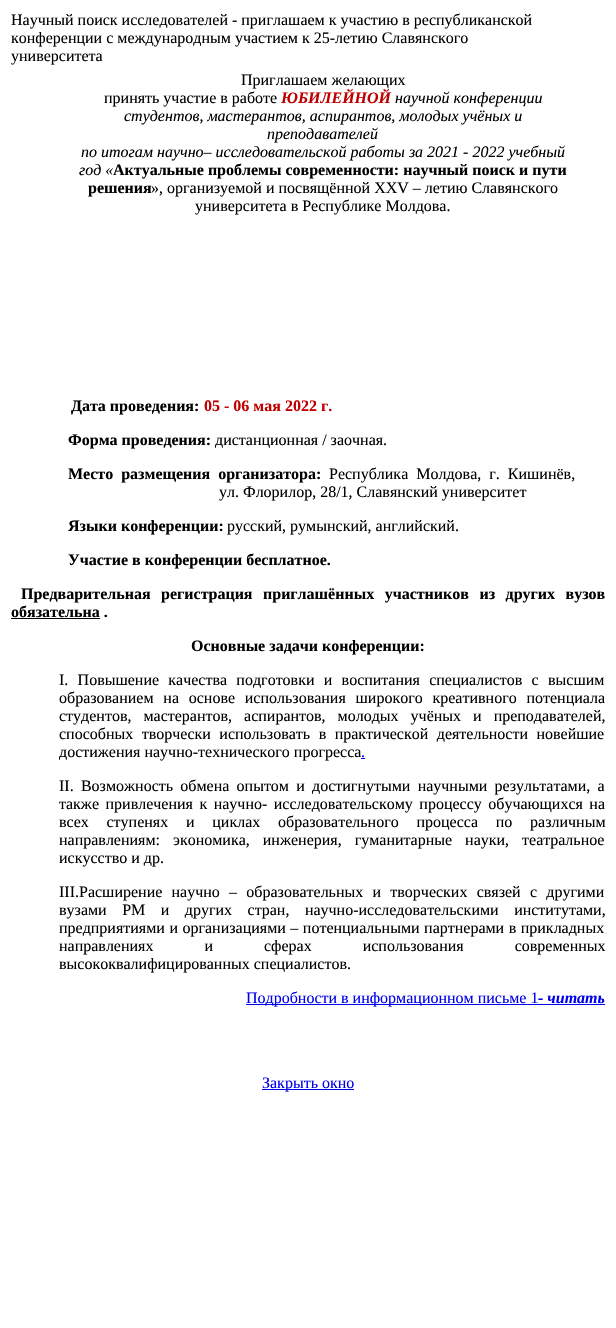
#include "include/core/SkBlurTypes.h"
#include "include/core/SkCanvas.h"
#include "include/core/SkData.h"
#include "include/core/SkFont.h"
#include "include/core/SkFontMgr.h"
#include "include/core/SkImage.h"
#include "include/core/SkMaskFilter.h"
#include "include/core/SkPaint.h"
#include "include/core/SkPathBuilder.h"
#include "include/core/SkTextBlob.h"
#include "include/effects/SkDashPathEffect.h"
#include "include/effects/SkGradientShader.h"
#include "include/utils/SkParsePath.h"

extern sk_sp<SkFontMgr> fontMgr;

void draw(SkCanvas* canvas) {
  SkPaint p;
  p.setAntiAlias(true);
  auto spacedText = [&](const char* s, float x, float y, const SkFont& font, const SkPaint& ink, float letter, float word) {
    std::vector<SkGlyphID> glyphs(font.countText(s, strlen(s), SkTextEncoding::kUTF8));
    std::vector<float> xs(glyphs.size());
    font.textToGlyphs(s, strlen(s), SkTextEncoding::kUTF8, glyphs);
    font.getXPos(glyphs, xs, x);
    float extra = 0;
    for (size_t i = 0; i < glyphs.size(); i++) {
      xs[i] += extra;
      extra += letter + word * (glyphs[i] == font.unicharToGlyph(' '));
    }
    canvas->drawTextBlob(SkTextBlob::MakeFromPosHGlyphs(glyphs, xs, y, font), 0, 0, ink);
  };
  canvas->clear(SK_ColorWHITE);
  p.setColor(SK_ColorBLACK);
  canvas->drawRect(SkRect::MakeLTRB(11, 618, 100, 619), p);
  p.setColor(SkColorSetRGB(0, 0, 238));
  canvas->drawRect(SkRect::MakeLTRB(246, 1004, 605, 1005), p);
  canvas->drawRect(SkRect::MakeLTRB(262, 1089, 354, 1090), p);
  SkFont font1(fontMgr->matchFamilyStyle("Liberation Serif", SkFontStyle::Normal()), 16);
  font1.setSubpixel(true);
  p.setColor(SK_ColorBLACK);
  canvas->drawString("Научный поиск исследователей - приглашаем к участию в республиканской", 11, 25, font1, p);
  canvas->drawString("конференции с международным участием к 25-летию Славянского", 11, 43, font1, p);
  canvas->drawString("университета", 11, 61, font1, p);
  canvas->drawString("Приглашаем желающих", 241, 85, font1, p);
  canvas->drawString("принять участие в работе", 104, 103, font1, p);
  SkFont font2(fontMgr->matchFamilyStyle("Liberation Serif", SkFontStyle::BoldItalic()), 16);
  font2.setSubpixel(true);
  p.setColor(SkColorSetRGB(192, 0, 0));
  canvas->drawString("ЮБИЛЕЙНОЙ", 281, 103, font2, p);
  SkFont font3(fontMgr->matchFamilyStyle("Liberation Serif", SkFontStyle::Italic()), 16);
  font3.setSubpixel(true);
  p.setColor(SK_ColorBLACK);
  canvas->drawString("научной конференции", 395, 103, font3, p);
  canvas->drawString("студентов, мастерантов, аспирантов, молодых учёных и", 124, 121, font3, p);
  canvas->drawString("преподавателей", 267, 139, font3, p);
  canvas->drawString("по итогам научно– исследовательской работы за 2021 - 2022 учебный", 81, 157, font3, p);
  canvas->drawString("год «", 79, 175, font3, p);
  SkFont font4(fontMgr->matchFamilyStyle("Liberation Serif", SkFontStyle::Bold()), 16);
  font4.setSubpixel(true);
  canvas->drawString("Актуальные проблемы современности: научный поиск и пути", 113, 175, font4, p);
  canvas->drawString("решения", 88, 193, font4, p);
  canvas->drawString("», организуемой и посвящённой XXV – летию Славянского", 151, 193, font1, p);
  canvas->drawString("университета в Республике Молдова.", 195, 211, font1, p);
  canvas->drawString("Дата проведения:", 71, 411, font4, p);
  p.setColor(SkColorSetRGB(192, 0, 0));
  canvas->drawString("05 - 06 мая 2022 г.", 204, 411, font4, p);
  p.setColor(SK_ColorBLACK);
  canvas->drawString("Форма проведения:", 68, 445, font4, p);
  canvas->drawString("дистанционная / заочная.", 215, 445, font1, p);
  spacedText("Место размещения организатора:", 68, 479, font4, p, 0, 4);
  spacedText("Республика Молдова, г. Кишинёв,", 329, 479, font1, p, 0, 4);
  canvas->drawString("ул. Флорилор, 28/1, Славянский университет", 219, 497, font1, p);
  canvas->drawString("Языки конференции:", 68, 531, font4, p);
  canvas->drawString("русский, румынский, английский.", 227, 531, font1, p);
  canvas->drawString("Участие в конференции бесплатное.", 68, 565, font4, p);
  spacedText("Предварительная регистрация приглашённых участников из других вузов", 21, 599, font4, p, 0, 6.5f);
  canvas->drawString("обязательна .", 11, 617, font4, p);
  canvas->drawString("Основные задачи конференции:", 191, 651, font4, p);
  spacedText("I. Повышение качества подготовки и воспитания специалистов с высшим", 59, 685, font1, p, 0, 5.25f);
  spacedText("образованием на основе использования широкого креативного потенциала", 59, 703, font1, p, 0, 5.75f);
  spacedText("студентов, мастерантов, аспирантов, молодых учёных и преподавателей,", 59, 721, font1, p, 0, 8);
  spacedText("способных творчески использовать в практической деятельности новейшие", 59, 739, font1, p, 0, 4.5f);
  canvas->drawString("достижения научно-технического прогресса", 59, 757, font1, p);
  p.setColor(SkColorSetRGB(0, 0, 238));
  canvas->drawString(".", 361, 757, font1, p);
  canvas->drawRect(SkRect::MakeLTRB(361, 758, 365, 759), p);
  p.setColor(SK_ColorBLACK);
  spacedText("II. Возможность обмена опытом и достигнутыми научными результатами, а", 59, 791, font1, p, 0, 3.25f);
  spacedText("также привлечения к научно- исследовательскому процессу обучающихся на", 59, 809, font1, p, 0, 2.5f);
  spacedText("всех ступенях и циклах образовательного процесса по различным", 59, 827, font1, p, 0, 13.75f);
  spacedText("направлениям: экономика, инженерия, гуманитарные науки, театральное", 59, 845, font1, p, 0, 9);
  canvas->drawString("искусство и др.", 59, 863, font1, p);
  spacedText("III.Расширение научно – образовательных и творческих связей с другими", 59, 897, font1, p, 0, 5.25f);
  spacedText("вузами РМ и других стран, научно-исследовательскими институтами,", 59, 915, font1, p, 0, 11.5f);
  spacedText("предприятиями и организациями – потенциальными партнерами в прикладных", 59, 933, font1, p, 0, 0.5f);
  spacedText("направлениях и сферах использования современных", 59, 951, font1, p, 0, 47);
  canvas->drawString("высококвалифицированных специалистов.", 59, 969, font1, p);
  p.setColor(SkColorSetRGB(0, 0, 238));
  canvas->drawString("Подробности в информационном письме 1", 246, 1003, font1, p);
  canvas->drawString("- читать", 538, 1003, font2, p);
  canvas->drawString("Закрыть окно", 262, 1088, font1, p);
}
